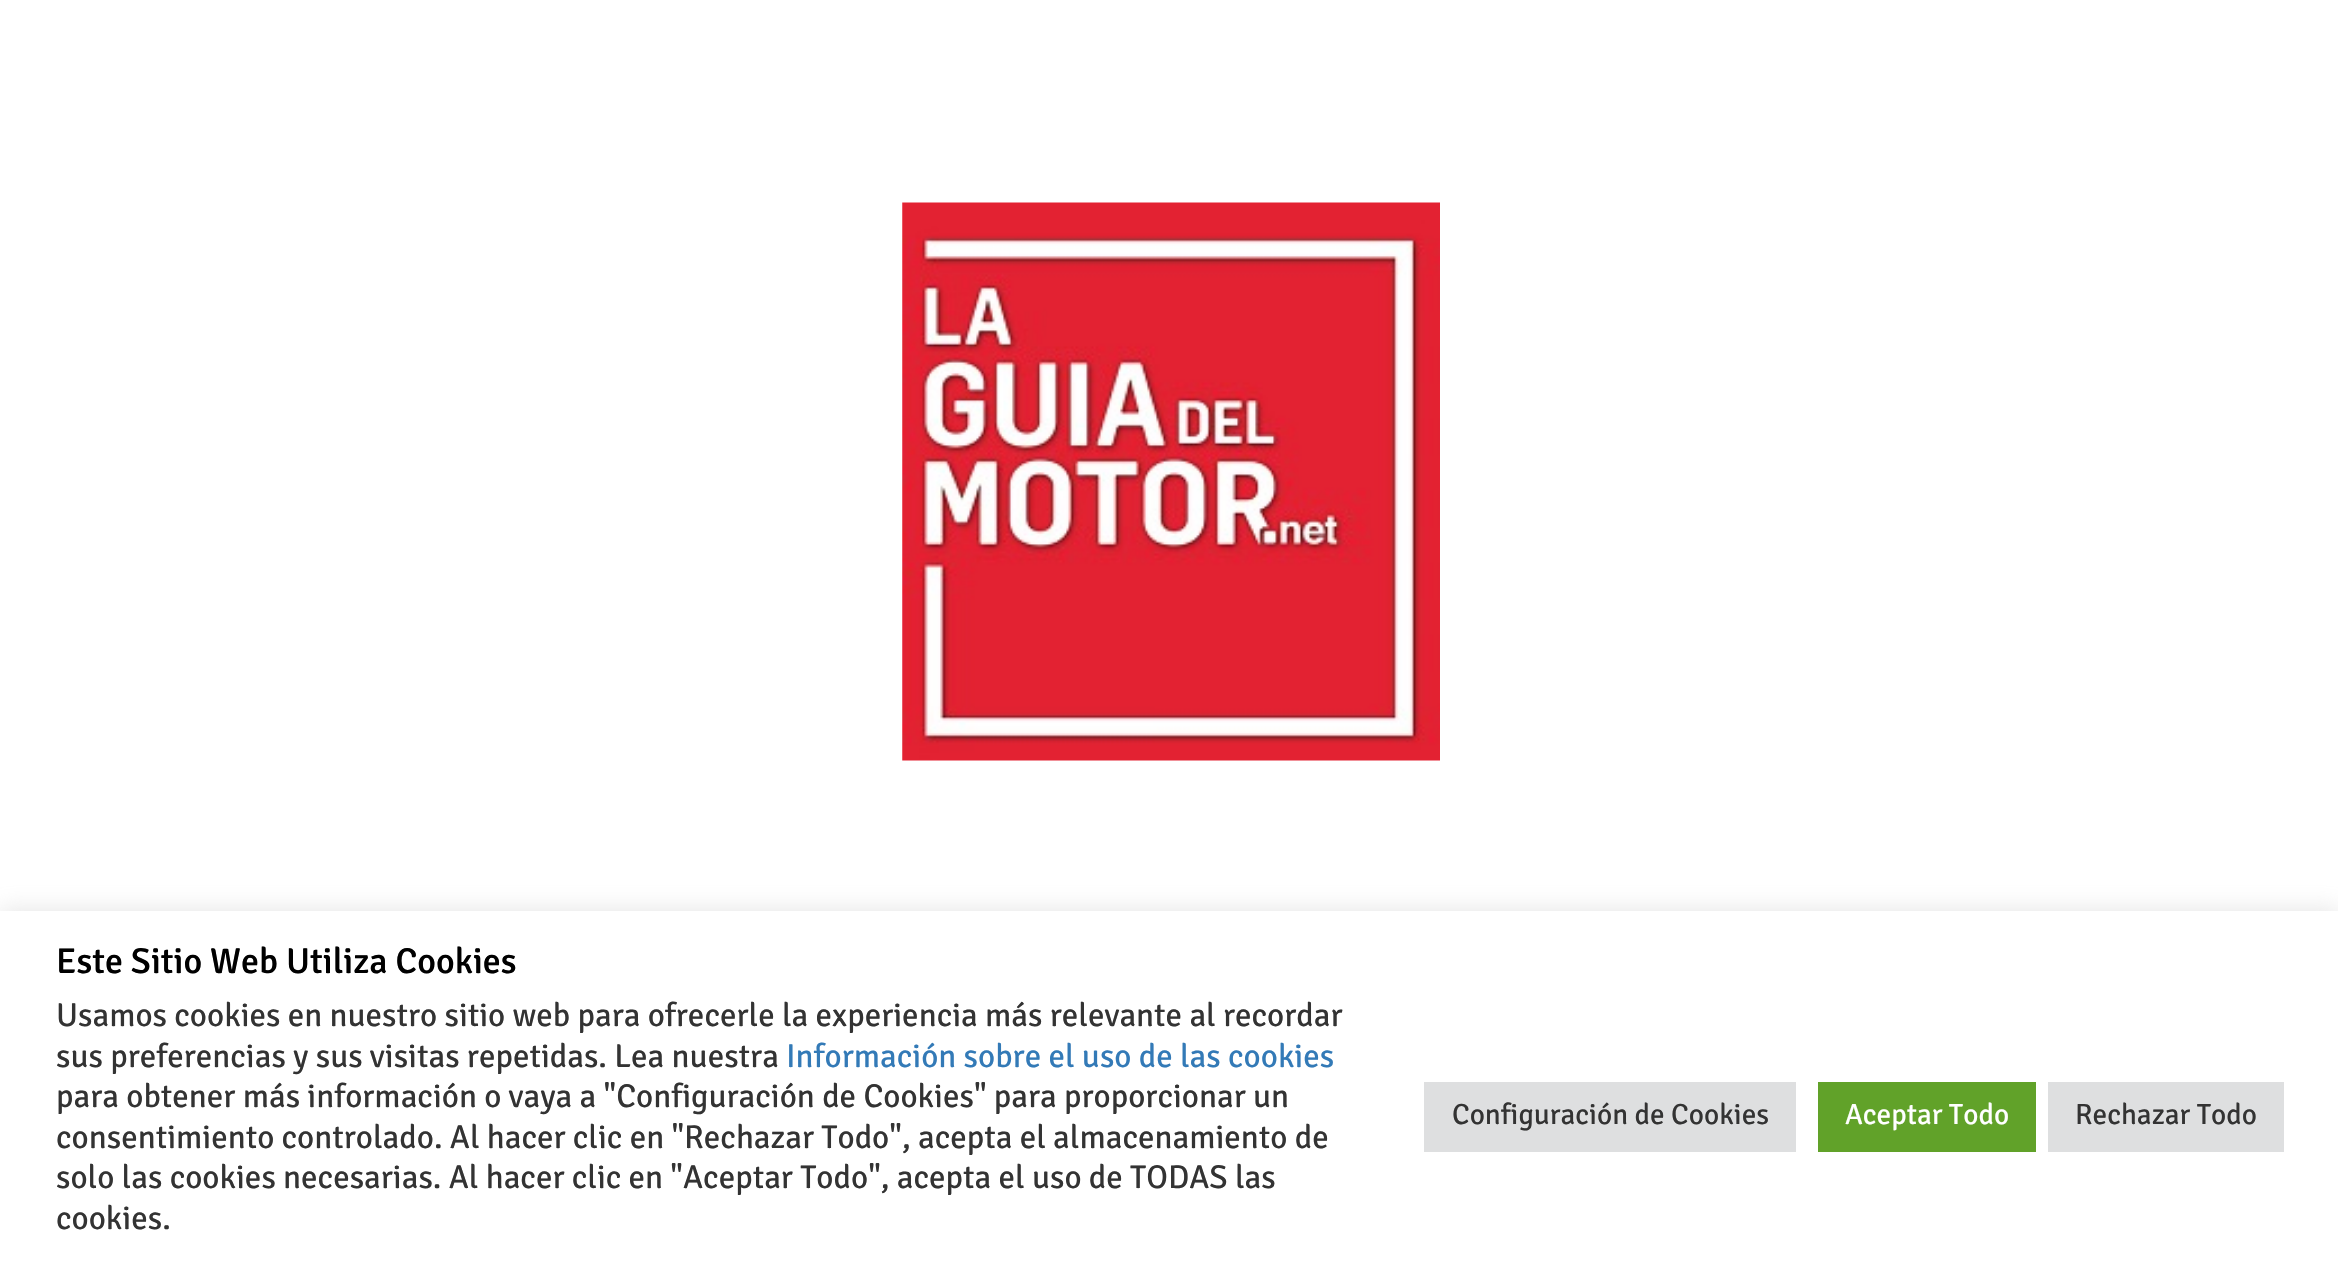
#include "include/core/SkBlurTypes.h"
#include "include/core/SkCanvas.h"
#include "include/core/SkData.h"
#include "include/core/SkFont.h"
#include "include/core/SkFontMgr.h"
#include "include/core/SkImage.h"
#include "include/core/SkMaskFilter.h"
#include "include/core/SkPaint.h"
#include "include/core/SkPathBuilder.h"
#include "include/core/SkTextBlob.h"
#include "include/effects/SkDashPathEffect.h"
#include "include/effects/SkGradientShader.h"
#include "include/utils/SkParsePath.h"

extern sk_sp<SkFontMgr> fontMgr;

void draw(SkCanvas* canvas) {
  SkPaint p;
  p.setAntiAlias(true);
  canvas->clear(SK_ColorWHITE);
  canvas->drawImageRect(SkImages::DeferredFromEncodedData(SkData::MakeFromFileName("images/1.png")), SkRect::MakeLTRB(902, 202, 1440, 761), SkSamplingOptions());
  p.setColor(SkColorSetARGB(77, 172, 171, 171));
  p.setMaskFilter(SkMaskFilter::MakeBlur(kNormal_SkBlurStyle, 11));
  canvas->drawRect(SkRect::MakeLTRB(0, 909, 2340, 1267), p);
  p.setMaskFilter(nullptr);
  p.setColor(SK_ColorWHITE);
  canvas->drawRect(SkRect::MakeLTRB(0, 911, 2338, 1267), p);
  p.setColor(SkColorSetRGB(222, 223, 224));
  canvas->drawRect(SkRect::MakeLTRB(1424, 1082, 1796, 1152), p);
  p.setColor(SkColorSetRGB(97, 162, 41));
  canvas->drawRect(SkRect::MakeLTRB(1818, 1082, 2036, 1152), p);
  p.setColor(SkColorSetRGB(222, 223, 224));
  canvas->drawRect(SkRect::MakeLTRB(2048, 1082, 2284, 1152), p);
  SkFont font1(fontMgr->matchFamilyStyle("Signika Negative", SkFontStyle(500, SkFontStyle::kNormal_Width, SkFontStyle::kUpright_Slant)), 36);
  font1.setSubpixel(true);
  p.setColor(SK_ColorBLACK);
  canvas->drawString("Este Sitio Web Utiliza Cookies", 56, 973, font1, p);
  SkFont font2(fontMgr->matchFamilyStyle("Signika Negative", SkFontStyle::Normal()), 33);
  font2.setSubpixel(true);
  p.setColor(SkColorSetRGB(51, 51, 51));
  canvas->drawString("Usamos cookies en nuestro sitio web para ofrecerle la experiencia más relevante al recordar", 56, 1026, font2, p);
  canvas->drawString("sus preferencias y sus visitas repetidas. Lea nuestra", 56, 1067, font2, p);
  p.setColor(SkColorSetRGB(51, 122, 183));
  canvas->drawString("Información sobre el uso de las cookies", 786, 1067, font2, p);
  p.setColor(SkColorSetRGB(51, 51, 51));
  canvas->drawString("para obtener más información o vaya a \"Configuración de Cookies\" para proporcionar un", 56, 1107, font2, p);
  canvas->drawString("consentimiento controlado. Al hacer clic en \"Rechazar Todo\", acepta el almacenamiento de", 56, 1148, font2, p);
  canvas->drawString("solo las cookies necesarias. Al hacer clic en \"Aceptar Todo\", acepta el uso de TODAS las", 56, 1188, font2, p);
  canvas->drawString("cookies.", 56, 1229, font2, p);
  SkFont font3(fontMgr->matchFamilyStyle("Signika Negative", SkFontStyle::Normal()), 29.25f);
  font3.setSubpixel(true);
  canvas->drawString("Configuración de Cookies", 1452, 1124, font3, p);
  p.setColor(SK_ColorWHITE);
  canvas->drawString("Aceptar Todo", 1845, 1124, font3, p);
  p.setColor(SkColorSetRGB(51, 51, 51));
  canvas->drawString("Rechazar Todo", 2075, 1124, font3, p);
}
